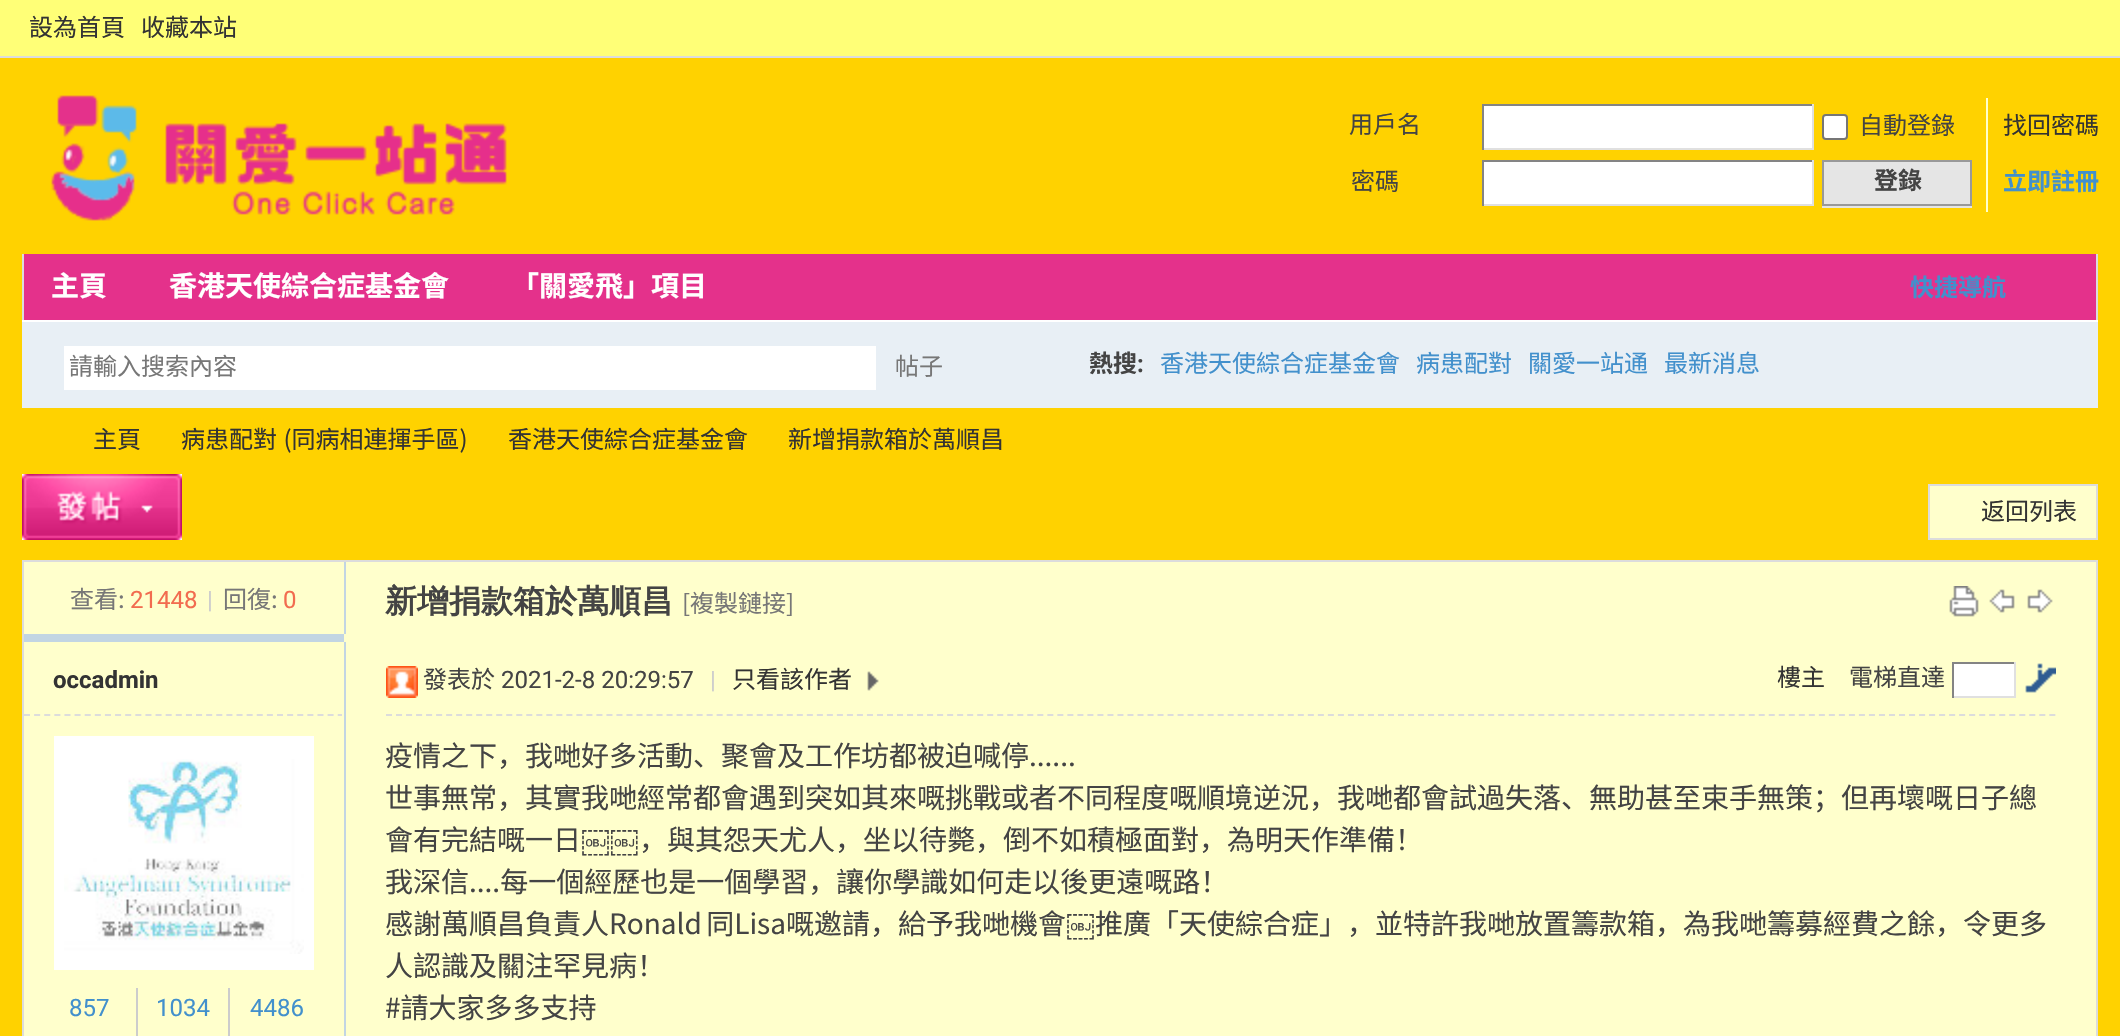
#include "include/core/SkBlurTypes.h"
#include "include/core/SkCanvas.h"
#include "include/core/SkData.h"
#include "include/core/SkFont.h"
#include "include/core/SkFontMgr.h"
#include "include/core/SkImage.h"
#include "include/core/SkMaskFilter.h"
#include "include/core/SkPaint.h"
#include "include/core/SkPathBuilder.h"
#include "include/core/SkTextBlob.h"
#include "include/effects/SkDashPathEffect.h"
#include "include/effects/SkGradientShader.h"
#include "include/utils/SkParsePath.h"

extern sk_sp<SkFontMgr> fontMgr;

void draw(SkCanvas* canvas) {
  SkPaint p;
  p.setAntiAlias(true);
  auto spacedText = [&](const char* s, float x, float y, const SkFont& font, const SkPaint& ink, float letter, float word) {
    std::vector<SkGlyphID> glyphs(font.countText(s, strlen(s), SkTextEncoding::kUTF8));
    std::vector<float> xs(glyphs.size());
    font.textToGlyphs(s, strlen(s), SkTextEncoding::kUTF8, glyphs);
    font.getXPos(glyphs, xs, x);
    float extra = 0;
    for (size_t i = 0; i < glyphs.size(); i++) {
      xs[i] += extra;
      extra += letter + word * (glyphs[i] == font.unicharToGlyph(' '));
    }
    canvas->drawTextBlob(SkTextBlob::MakeFromPosHGlyphs(glyphs, xs, y, font), 0, 0, ink);
  };
  canvas->clear(SkColorSetRGB(255, 210, 0));
  p.setColor(SkColorSetRGB(255, 255, 119));
  canvas->drawRect(SkRect::MakeLTRB(0, 0, 2120, 56), p);
  p.setColor(SkColorSetRGB(220, 220, 220));
  canvas->drawRect(SkRect::MakeLTRB(0, 56, 2120, 58), p);
  canvas->drawImageRect(SkImages::DeferredFromEncodedData(SkData::MakeFromFileName("images/1.png")), SkRect::MakeLTRB(51, 95, 507, 221), SkSamplingOptions());
  p.setColor(SK_ColorWHITE);
  canvas->drawRect(SkRect::MakeLTRB(1484, 106, 1812, 148), p);
  p.setColor(SkColorSetRGB(132, 132, 132));
  canvas->drawRect(SkRect::MakeLTRB(1482, 104, 1814, 106), p);
  p.setColor(SkColorSetRGB(224, 224, 224));
  canvas->drawRect(SkRect::MakeLTRB(1812, 104, 1814, 150), p);
  canvas->drawRect(SkRect::MakeLTRB(1482, 148, 1814, 150), p);
  p.setColor(SkColorSetRGB(132, 132, 132));
  canvas->drawRect(SkRect::MakeLTRB(1482, 104, 1484, 150), p);
  p.setColor(SK_ColorWHITE);
  canvas->drawRoundRect(SkRect::MakeLTRB(1823, 115, 1847, 139), 3, 3, p);
  p.setStyle(SkPaint::kStroke_Style);
  p.setStrokeWidth(2);
  p.setColor(SkColorSetRGB(118, 118, 118));
  canvas->drawRoundRect(SkRect::MakeLTRB(1823, 115, 1847, 139), 3, 3, p);
  p.setStyle(SkPaint::kFill_Style);
  p.setColor(SK_ColorWHITE);
  canvas->drawRect(SkRect::MakeLTRB(1484, 162, 1812, 204), p);
  p.setColor(SkColorSetRGB(132, 132, 132));
  canvas->drawRect(SkRect::MakeLTRB(1482, 160, 1814, 162), p);
  p.setColor(SkColorSetRGB(224, 224, 224));
  canvas->drawRect(SkRect::MakeLTRB(1812, 160, 1814, 206), p);
  canvas->drawRect(SkRect::MakeLTRB(1482, 204, 1814, 206), p);
  p.setColor(SkColorSetRGB(132, 132, 132));
  canvas->drawRect(SkRect::MakeLTRB(1482, 160, 1484, 206), p);
  p.setColor(SkColorSetRGB(255, 255, 204));
  canvas->drawRect(SkRect::MakeLTRB(1986, 98, 1988, 212), p);
  p.setColor(SkColorSetRGB(229, 229, 229));
  canvas->drawRect(SkRect::MakeLTRB(1822, 206, 1972, 208), p);
  canvas->drawRect(SkRect::MakeLTRB(1823, 161, 1971, 205), p);
  p.setStyle(SkPaint::kStroke_Style);
  p.setColor(SkColorSetRGB(153, 153, 153));
  canvas->drawRect(SkRect::MakeLTRB(1823, 161, 1971, 205), p);
  p.setStyle(SkPaint::kFill_Style);
  p.setColor(SkColorSetRGB(228, 49, 139));
  canvas->drawRect(SkRect::MakeLTRB(24, 254, 2096, 320), p);
  p.setColor(SkColorSetRGB(220, 220, 220));
  canvas->drawRect(SkRect::MakeLTRB(2096, 254, 2098, 320), p);
  canvas->drawRect(SkRect::MakeLTRB(22, 254, 24, 320), p);
  p.setColor(SkColorSetRGB(232, 239, 245));
  canvas->drawRect(SkRect::MakeLTRB(22, 322, 2098, 408), p);
  p.setColor(SK_ColorWHITE);
  canvas->drawRect(SkRect::MakeLTRB(22, 320, 2098, 322), p);
  canvas->drawRect(SkRect::MakeLTRB(64, 346, 876, 390), p);
  canvas->drawImageRect(SkImages::DeferredFromEncodedData(SkData::MakeFromFileName("images/2.png")), SkRect::MakeLTRB(22, 474, 182, 540), SkSamplingOptions());
  p.setColor(SkColorSetRGB(255, 255, 204));
  canvas->drawRect(SkRect::MakeLTRB(1929, 485, 2097, 539), p);
  p.setStyle(SkPaint::kStroke_Style);
  p.setColor(SkColorSetRGB(220, 220, 220));
  canvas->drawRect(SkRect::MakeLTRB(1929, 485, 2097, 539), p);
  p.setStyle(SkPaint::kFill_Style);
  p.setColor(SkColorSetRGB(255, 255, 204));
  canvas->drawRect(SkRect::MakeLTRB(23, 561, 2097, 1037), p);
  p.setStyle(SkPaint::kStroke_Style);
  p.setColor(SkColorSetRGB(220, 220, 220));
  canvas->drawRect(SkRect::MakeLTRB(23, 561, 2097, 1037), p);
  p.setStyle(SkPaint::kFill_Style);
  p.setColor(SkColorSetRGB(194, 213, 227));
  canvas->drawRect(SkRect::MakeLTRB(344, 562, 346, 636), p);
  canvas->drawImageRect(SkImages::DeferredFromEncodedData(SkData::MakeFromFileName("images/3.png")), SkRect::MakeLTRB(1949, 586, 1979, 617), SkSamplingOptions());
  canvas->drawImageRect(SkImages::DeferredFromEncodedData(SkData::MakeFromFileName("images/4.png")), SkRect::MakeLTRB(1989, 589, 2015, 613), SkSamplingOptions());
  canvas->drawImageRect(SkImages::DeferredFromEncodedData(SkData::MakeFromFileName("images/5.png")), SkRect::MakeLTRB(2027, 589, 2053, 613), SkSamplingOptions());
  canvas->drawRect(SkRect::MakeLTRB(24, 634, 344, 642), p);
  p.setColor(SkColorSetRGB(255, 255, 204));
  canvas->drawRect(SkRect::MakeLTRB(344, 634, 346, 636), p);
  p.setColor(SkColorSetRGB(194, 213, 227));
  canvas->drawRect(SkRect::MakeLTRB(344, 642, 346, 1036), p);
  canvas->save();
  canvas->clipRect(SkRect::MakeLTRB(24, 642, 342, 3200));
  p.setStyle(SkPaint::kStroke_Style);
  p.setColor(SkColorSetRGB(220, 220, 220));
  p.setPathEffect(SkDashPathEffect::Make({{6, 4.12f}}, 0));
  canvas->drawPath(SkPathBuilder().moveTo(24, 715).lineTo(344, 715).detach(), p);
  p.setPathEffect(nullptr);
  canvas->restore();
  p.setStyle(SkPaint::kFill_Style);
  p.setColor(SK_ColorWHITE);
  canvas->drawRect(SkRect::MakeLTRB(54, 736, 314, 970), p);
  canvas->drawImageRect(SkImages::DeferredFromEncodedData(SkData::MakeFromFileName("images/6.png")), SkRect::MakeLTRB(64, 759, 304, 954), SkSamplingOptions());
  p.setColor(SkColorSetRGB(204, 204, 204));
  canvas->drawRect(SkRect::MakeLTRB(136, 988, 138, 1036), p);
  canvas->drawRect(SkRect::MakeLTRB(228, 988, 230, 1036), p);
  p.setStyle(SkPaint::kStroke_Style);
  p.setColor(SkColorSetRGB(220, 220, 220));
  p.setPathEffect(SkDashPathEffect::Make({{6, 4.02f}}, 0));
  canvas->drawPath(SkPathBuilder().moveTo(386, 715).lineTo(2056, 715).detach(), p);
  p.setPathEffect(nullptr);
  canvas->drawImageRect(SkImages::DeferredFromEncodedData(SkData::MakeFromFileName("images/7.png")), SkRect::MakeLTRB(386, 666, 418, 698), SkSamplingOptions());
  canvas->drawImageRect(SkImages::DeferredFromEncodedData(SkData::MakeFromFileName("images/8.png")), SkRect::MakeLTRB(867, 671, 879, 691), SkSamplingOptions());
  p.setStyle(SkPaint::kFill_Style);
  p.setColor(SK_ColorWHITE);
  canvas->drawRect(SkRect::MakeLTRB(1954, 664, 2014, 696), p);
  p.setColor(SkColorSetRGB(132, 132, 132));
  canvas->drawRect(SkRect::MakeLTRB(1952, 662, 2016, 664), p);
  p.setColor(SkColorSetRGB(224, 224, 224));
  canvas->drawRect(SkRect::MakeLTRB(2014, 662, 2016, 698), p);
  canvas->drawRect(SkRect::MakeLTRB(1952, 696, 2016, 698), p);
  p.setColor(SkColorSetRGB(132, 132, 132));
  canvas->drawRect(SkRect::MakeLTRB(1952, 662, 1954, 698), p);
  canvas->drawImageRect(SkImages::DeferredFromEncodedData(SkData::MakeFromFileName("images/9.png")), SkRect::MakeLTRB(2025, 663, 2056, 693), SkSamplingOptions());
  SkFont font1(fontMgr->matchFamilyStyle("Noto Sans SC", SkFontStyle::Normal()), 24);
  font1.setSubpixel(true);
  p.setColor(SkColorSetRGB(51, 51, 51));
  canvas->drawString("設為首頁", 29, 36, font1, p);
  canvas->drawString("收藏本站", 141, 36, font1, p);
  p.setColor(SkColorSetRGB(68, 68, 68));
  canvas->drawString("用戶名", 1349, 133, font1, p);
  canvas->drawString("自動登錄", 1859, 134, font1, p);
  p.setColor(SkColorSetRGB(51, 51, 51));
  canvas->drawString("找回密碼", 2003, 134, font1, p);
  p.setColor(SkColorSetRGB(68, 68, 68));
  canvas->drawString("密碼", 1351, 190, font1, p);
  SkFont font2(fontMgr->matchFamilyStyle("Noto Sans SC", SkFontStyle::Bold()), 24);
  font2.setSubpixel(true);
  canvas->drawString("登錄", 1874, 189, font2, p);
  p.setColor(SkColorSetRGB(66, 144, 204));
  canvas->drawString("立即註冊", 2003, 190, font2, p);
  SkFont font3(fontMgr->matchFamilyStyle("Noto Sans SC", SkFontStyle::Bold()), 28);
  font3.setSubpixel(true);
  p.setColor(SK_ColorWHITE);
  canvas->drawString("主頁", 51, 296, font3, p);
  canvas->drawString("香港天使綜合症基金會", 169, 296, font3, p);
  canvas->drawString("「關愛飛」項目", 511, 296, font3, p);
  p.setColor(SkColorSetRGB(66, 144, 204));
  canvas->drawString("快捷導航", 1910, 296, font2, p);
  p.setColor(SkColorSetRGB(119, 119, 119));
  canvas->drawString("請輸入搜索內容", 69, 375, font1, p);
  canvas->drawString("帖子", 895, 375, font1, p);
  p.setColor(SkColorSetRGB(68, 68, 68));
  canvas->drawString("熱搜", 1089, 372, font2, p);
  SkFont font4(fontMgr->matchFamilyStyle("Roboto", SkFontStyle::Bold()), 24);
  font4.setSubpixel(true);
  canvas->drawString(":", 1137, 372, font4, p);
  p.setColor(SkColorSetRGB(66, 144, 204));
  canvas->drawString("香港天使綜合症基金會", 1160, 372, font1, p);
  canvas->drawString("病患配對", 1416, 372, font1, p);
  canvas->drawString("關愛一站通", 1528, 372, font1, p);
  canvas->drawString("最新消息", 1664, 372, font1, p);
  p.setColor(SkColorSetRGB(51, 51, 51));
  canvas->drawString("主頁", 93, 448, font1, p);
  spacedText("病患配對 (同病相連揮手區)", 181, 448, font1, p, 0, 1);
  canvas->drawString("香港天使綜合症基金會", 508, 448, font1, p);
  canvas->drawString("新增捐款箱於萬順昌", 788, 448, font1, p);
  canvas->drawString("返回列表", 1981, 520, font1, p);
  p.setColor(SkColorSetRGB(119, 119, 119));
  canvas->drawString("查看:", 70, 608, font1, p);
  SkFont font5(fontMgr->matchFamilyStyle("Roboto", SkFontStyle::Normal()), 24);
  font5.setSubpixel(true);
  p.setColor(SkColorSetRGB(242, 108, 79));
  canvas->drawString("21448", 130, 608, font5, p);
  p.setColor(SkColorSetRGB(204, 204, 204));
  canvas->drawString("|", 207, 608, font5, p);
  p.setColor(SkColorSetRGB(119, 119, 119));
  canvas->drawString("回復:", 223, 608, font1, p);
  p.setColor(SkColorSetRGB(242, 108, 79));
  canvas->drawString("0", 283, 608, font5, p);
  SkFont font6(fontMgr->matchFamilyStyle("WenQuanYi Zen Hei", SkFontStyle::Bold()), 32);
  font6.setSubpixel(true);
  p.setColor(SkColorSetRGB(68, 68, 68));
  canvas->drawString("新增捐款箱於萬順昌", 385, 612, font6, p);
  p.setColor(SkColorSetRGB(119, 119, 119));
  canvas->drawString("[複製鏈接]", 682, 612, font1, p);
  p.setColor(SkColorSetRGB(51, 51, 51));
  canvas->drawString("occadmin", 53, 688, font4, p);
  p.setColor(SkColorSetRGB(66, 144, 204));
  canvas->drawString("857", 69, 1016, font5, p);
  canvas->drawString("1034", 156, 1016, font5, p);
  canvas->drawString("4486", 250, 1016, font5, p);
  p.setColor(SkColorSetRGB(68, 68, 68));
  canvas->drawString("發表於", 423, 688, font1, p);
  canvas->drawString("2021-2-8 20:29:57", 501, 688, font5, p);
  p.setColor(SkColorSetRGB(204, 204, 204));
  canvas->drawString("|", 710, 688, font5, p);
  p.setColor(SkColorSetRGB(51, 51, 51));
  canvas->drawString("只看該作者", 732, 688, font1, p);
  canvas->drawString("樓主", 1777, 686, font1, p);
  p.setColor(SkColorSetRGB(68, 68, 68));
  canvas->drawString("電梯直達", 1849, 686, font1, p);
  SkFont font7(fontMgr->matchFamilyStyle("Noto Sans SC", SkFontStyle::Normal()), 28);
  font7.setSubpixel(true);
  canvas->drawString("疫情之下，我哋好多活動、聚會及工作坊都被迫喊停......", 385, 766, font7, p);
  canvas->drawString("世事無常，其實我哋經常都會遇到突如其來嘅挑戰或者不同程度嘅順境逆況，我哋都會試過失落、無助甚至束手無策；但再壞嘅日子總", 385, 808, font7, p);
  canvas->drawString("會有完結嘅一日", 385, 850, font7, p);
  SkFont font8(fontMgr->matchFamilyStyle("Roboto", SkFontStyle::Normal()), 28);
  font8.setSubpixel(true);
  canvas->drawString("￼￼", 581, 850, font8, p);
  canvas->drawString("，與其怨天尤人，坐以待斃，倒不如積極面對，為明天作準備！", 639, 850, font7, p);
  canvas->drawString("我深信....每一個經歷也是一個學習，讓你學識如何走以後更遠嘅路！", 385, 892, font7, p);
  spacedText("感謝萬順昌負責人Ronald 同Lisa嘅邀請，給予我哋機會", 385, 934, font7, p, 0, -2);
  canvas->drawString("￼", 1066, 934, font8, p);
  canvas->drawString("推廣「天使綜合症」，並特許我哋放置籌款箱，為我哋籌募經費之餘，令更多", 1095, 934, font7, p);
  canvas->drawString("人認識及關注罕見病！", 385, 976, font7, p);
  canvas->drawString("#請大家多多支持", 385, 1018, font7, p);
}
